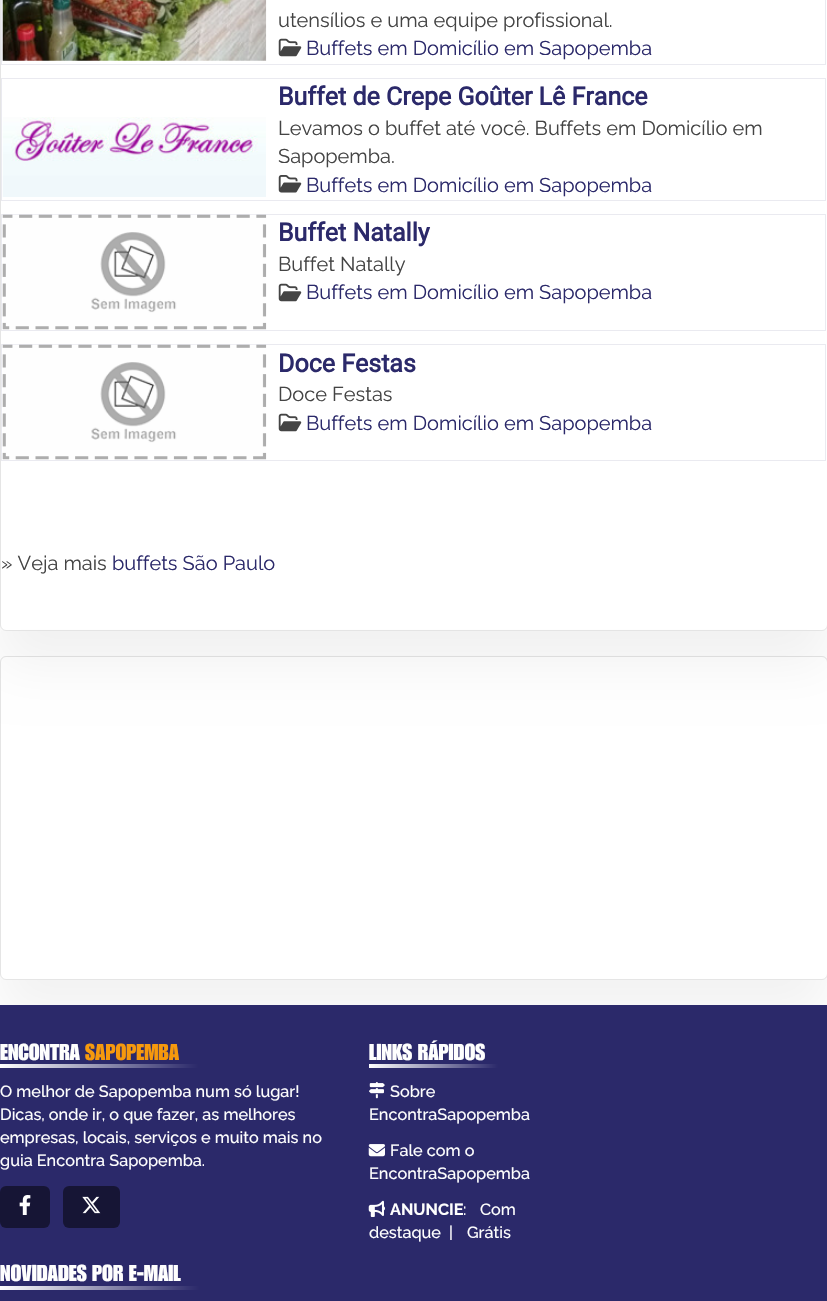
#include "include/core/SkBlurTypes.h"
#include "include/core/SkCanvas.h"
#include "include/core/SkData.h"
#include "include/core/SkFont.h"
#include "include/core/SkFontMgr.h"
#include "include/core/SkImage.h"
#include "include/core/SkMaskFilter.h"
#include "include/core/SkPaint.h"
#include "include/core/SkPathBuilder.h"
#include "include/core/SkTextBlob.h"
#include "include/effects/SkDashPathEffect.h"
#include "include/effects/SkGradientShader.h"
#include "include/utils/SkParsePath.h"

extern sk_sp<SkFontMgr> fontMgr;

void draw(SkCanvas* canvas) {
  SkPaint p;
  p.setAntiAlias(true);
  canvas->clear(SK_ColorWHITE);
  canvas->save();
  canvas->clipPath(SkPathBuilder(SkPathFillType::kEvenOdd).moveTo(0, 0).lineTo(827, 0).lineTo(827, 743).lineTo(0, 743).close().moveTo(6, -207).lineTo(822, -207).cubicTo(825.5f, -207, 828, -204.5f, 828, -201).lineTo(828, 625).cubicTo(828, 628.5f, 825.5f, 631, 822, 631).lineTo(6, 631).cubicTo(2.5f, 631, 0, 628.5f, 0, 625).lineTo(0, -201).cubicTo(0, -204.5f, 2.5f, -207, 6, -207).close().detach(), true);
  p.setColor(SkColorSetARGB(13, 0, 0, 0));
  p.setMaskFilter(SkMaskFilter::MakeBlur(kNormal_SkBlurStyle, 25.5f));
  canvas->drawRoundRect(SkRect::MakeLTRB(0, -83, 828, 665), 6, 6, p);
  p.setMaskFilter(nullptr);
  canvas->restore();
  p.setStyle(SkPaint::kStroke_Style);
  p.setStrokeWidth(1);
  p.setColor(SkColorSetARGB(26, 0, 0, 0));
  canvas->drawRoundRect(SkRect::MakeLTRB(0.5f, -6.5f, 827.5f, 630.5f), 5.5f, 5.5f, p);
  p.setColor(SkColorSetRGB(234, 234, 240));
  canvas->drawRect(SkRect::MakeLTRB(1.5f, -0.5f, 825.5f, 64.5f), p);
  canvas->drawImageRect(SkImages::DeferredFromEncodedData(SkData::MakeFromFileName("images/1.png")), SkRect::MakeLTRB(2, 0, 267, 61), SkSamplingOptions());
  canvas->drawImageRect(SkImages::DeferredFromEncodedData(SkData::MakeFromFileName("images/2.png")), SkRect::MakeLTRB(278, 38, 302, 57), SkSamplingOptions());
  canvas->drawRect(SkRect::MakeLTRB(1.5f, 78.5f, 825.5f, 200.5f), p);
  canvas->drawImageRect(SkImages::DeferredFromEncodedData(SkData::MakeFromFileName("images/3.png")), SkRect::MakeLTRB(2, 117, 266, 197), SkSamplingOptions());
  canvas->drawImageRect(SkImages::DeferredFromEncodedData(SkData::MakeFromFileName("images/4.png")), SkRect::MakeLTRB(278, 175, 302, 193), SkSamplingOptions());
  canvas->drawRect(SkRect::MakeLTRB(1.5f, 214.5f, 825.5f, 330.5f), p);
  canvas->drawImageRect(SkImages::DeferredFromEncodedData(SkData::MakeFromFileName("images/5.png")), SkRect::MakeLTRB(2, 214, 267, 330), SkSamplingOptions());
  canvas->drawImageRect(SkImages::DeferredFromEncodedData(SkData::MakeFromFileName("images/2.png")), SkRect::MakeLTRB(278, 283, 302, 302), SkSamplingOptions());
  canvas->drawRect(SkRect::MakeLTRB(1.5f, 344.5f, 825.5f, 460.5f), p);
  canvas->drawImageRect(SkImages::DeferredFromEncodedData(SkData::MakeFromFileName("images/5.png")), SkRect::MakeLTRB(2, 344, 267, 460), SkSamplingOptions());
  canvas->drawImageRect(SkImages::DeferredFromEncodedData(SkData::MakeFromFileName("images/2.png")), SkRect::MakeLTRB(278, 413, 302, 432), SkSamplingOptions());
  canvas->save();
  canvas->clipPath(SkPathBuilder(SkPathFillType::kEvenOdd).moveTo(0, 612).lineTo(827, 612).lineTo(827, 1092).lineTo(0, 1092).close().moveTo(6, 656).lineTo(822, 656).cubicTo(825.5f, 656, 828, 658.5f, 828, 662).lineTo(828, 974).cubicTo(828, 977.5f, 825.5f, 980, 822, 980).lineTo(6, 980).cubicTo(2.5f, 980, 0, 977.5f, 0, 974).lineTo(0, 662).cubicTo(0, 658.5f, 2.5f, 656, 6, 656).close().detach(), true);
  p.setStyle(SkPaint::kFill_Style);
  p.setColor(SkColorSetARGB(13, 0, 0, 0));
  p.setMaskFilter(SkMaskFilter::MakeBlur(kNormal_SkBlurStyle, 25.5f));
  canvas->drawRoundRect(SkRect::MakeLTRB(0, 690, 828, 1014), 6, 6, p);
  p.setMaskFilter(nullptr);
  canvas->restore();
  p.setStyle(SkPaint::kStroke_Style);
  p.setColor(SkColorSetARGB(26, 0, 0, 0));
  canvas->drawRoundRect(SkRect::MakeLTRB(0.5f, 656.5f, 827.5f, 979.5f), 5.5f, 5.5f, p);
  p.setStyle(SkPaint::kFill_Style);
  p.setColor(SkColorSetRGB(43, 41, 106));
  canvas->drawRect(SkRect::MakeLTRB(0, 1005, 827, 1301), p);
  {
    const SkColor colors[] = {SK_ColorWHITE, SkColorSetRGB(43, 41, 106)};
    const float stops[] = {0, 1};
    const SkPoint ends[] = {{0, 1066}, {198, 1066}};
    p.setShader(SkGradientShader::MakeLinear(ends, colors, stops, 2, SkTileMode::kClamp));
    p.setAlpha(255);
  }
  canvas->drawRect(SkRect::MakeLTRB(0, 1064, 198, 1068), p);
  p.setShader(nullptr);
  p.setColor(SkColorSetRGB(22, 21, 53));
  canvas->drawRoundRect(SkRect::MakeLTRB(0, 1186, 50, 1228), 6, 6, p);
  canvas->drawImageRect(SkImages::DeferredFromEncodedData(SkData::MakeFromFileName("images/6.png")), SkRect::MakeLTRB(19, 1195, 31, 1215), SkSamplingOptions());
  canvas->drawRoundRect(SkRect::MakeLTRB(63, 1186, 120, 1228), 6, 6, p);
  canvas->drawImageRect(SkImages::DeferredFromEncodedData(SkData::MakeFromFileName("images/7.png")), SkRect::MakeLTRB(82, 1196, 101, 1214), SkSamplingOptions());
  {
    const SkColor colors[] = {SK_ColorWHITE, SkColorSetRGB(43, 41, 106)};
    const float stops[] = {0, 1};
    const SkPoint ends[] = {{369, 1066}, {498, 1066}};
    p.setShader(SkGradientShader::MakeLinear(ends, colors, stops, 2, SkTileMode::kClamp));
    p.setAlpha(255);
  }
  canvas->drawRect(SkRect::MakeLTRB(369, 1064, 498, 1068), p);
  canvas->drawImageRect(SkImages::DeferredFromEncodedData(SkData::MakeFromFileName("images/8.png")), SkRect::MakeLTRB(369, 1082, 385, 1099), SkSamplingOptions());
  canvas->drawImageRect(SkImages::DeferredFromEncodedData(SkData::MakeFromFileName("images/9.png")), SkRect::MakeLTRB(368, 1144, 385, 1157), SkSamplingOptions());
  canvas->drawImageRect(SkImages::DeferredFromEncodedData(SkData::MakeFromFileName("images/10.png")), SkRect::MakeLTRB(368, 1200, 385, 1217), SkSamplingOptions());
  {
    const SkColor colors[] = {SK_ColorWHITE, SkColorSetRGB(43, 41, 106)};
    const float stops[] = {0, 1};
    const SkPoint ends[] = {{0, 1288}, {199, 1288}};
    p.setShader(SkGradientShader::MakeLinear(ends, colors, stops, 2, SkTileMode::kClamp));
    p.setAlpha(255);
  }
  canvas->drawRect(SkRect::MakeLTRB(0, 1286, 199, 1290), p);
  SkFont font1(fontMgr->matchFamilyStyle("Raleway", SkFontStyle::Normal()), 20);
  font1.setSubpixel(true);
  p.setShader(nullptr);
  p.setColor(SkColorSetRGB(68, 68, 68));
  canvas->drawString("utensílios e uma equipe profissional.", 278, 27, font1, p);
  p.setColor(SkColorSetRGB(43, 41, 106));
  canvas->drawString("Buffets em Domicílio em Sapopemba", 306, 55, font1, p);
  SkFont font2(fontMgr->matchFamilyStyle("Roboto", SkFontStyle::Bold()), 25);
  font2.setSubpixel(true);
  canvas->drawString("Buffet de Crepe Goûter Lê France", 278, 105, font2, p);
  p.setColor(SkColorSetRGB(68, 68, 68));
  canvas->drawString("Levamos o buffet até você. Buffets em Domicílio em", 278, 135, font1, p);
  canvas->drawString("Sapopemba.", 278, 163, font1, p);
  p.setColor(SkColorSetRGB(43, 41, 106));
  canvas->drawString("Buffets em Domicílio em Sapopemba", 306, 192, font1, p);
  canvas->drawString("Buffet Natally", 278, 241, font2, p);
  p.setColor(SkColorSetRGB(68, 68, 68));
  canvas->drawString("Buffet Natally", 278, 271, font1, p);
  p.setColor(SkColorSetRGB(43, 41, 106));
  canvas->drawString("Buffets em Domicílio em Sapopemba", 306, 299, font1, p);
  canvas->drawString("Doce Festas", 278, 372, font2, p);
  p.setColor(SkColorSetRGB(68, 68, 68));
  canvas->drawString("Doce Festas", 278, 401, font1, p);
  p.setColor(SkColorSetRGB(43, 41, 106));
  canvas->drawString("Buffets em Domicílio em Sapopemba", 306, 430, font1, p);
  p.setColor(SkColorSetRGB(68, 68, 68));
  canvas->drawString("» Veja mais", 1, 570, font1, p);
  p.setColor(SkColorSetRGB(43, 41, 106));
  canvas->drawString("buffets São Paulo", 112, 570, font1, p);
  SkFont font3(fontMgr->matchFamilyStyle("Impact", SkFontStyle(500, SkFontStyle::kNormal_Width, SkFontStyle::kUpright_Slant)), 22.5f);
  font3.setSubpixel(true);
  p.setColor(SkColorSetRGB(254, 254, 254));
  canvas->drawString("ENCONTRA", 0, 1060, font3, p);
  p.setColor(SkColorSetRGB(246, 153, 13));
  canvas->drawString("SAPOPEMBA", 85, 1060, font3, p);
  SkFont font4(fontMgr->matchFamilyStyle("Raleway", SkFontStyle(500, SkFontStyle::kNormal_Width, SkFontStyle::kUpright_Slant)), 16.25f);
  font4.setSubpixel(true);
  p.setColor(SkColorSetRGB(254, 254, 254));
  canvas->drawString("O melhor de Sapopemba num só lugar!", 0, 1097, font4, p);
  canvas->drawString("Dicas, onde ir, o que fazer, as melhores", 0, 1120, font4, p);
  canvas->drawString("empresas, locais, serviços e muito mais no", 0, 1143, font4, p);
  canvas->drawString("guia Encontra Sapopemba.", 0, 1166, font4, p);
  canvas->drawString("LINKS RÁPIDOS", 369, 1060, font3, p);
  canvas->drawString("Sobre", 390, 1097, font4, p);
  canvas->drawString("EncontraSapopemba", 369, 1120, font4, p);
  canvas->drawString("Fale com o", 390, 1156, font4, p);
  canvas->drawString("EncontraSapopemba", 369, 1179, font4, p);
  SkFont font5(fontMgr->matchFamilyStyle("Raleway", SkFontStyle::Bold()), 16.25f);
  font5.setSubpixel(true);
  canvas->drawString("ANUNCIE", 390, 1215, font5, p);
  canvas->drawString(":", 463, 1215, font4, p);
  canvas->drawString("Com", 480, 1215, font4, p);
  canvas->drawString("destaque", 369, 1238, font4, p);
  canvas->drawString("|", 449, 1238, font4, p);
  canvas->drawString("Grátis", 467, 1238, font4, p);
  canvas->drawString("NOVIDADES POR E-MAIL", 0, 1281, font3, p);
}
